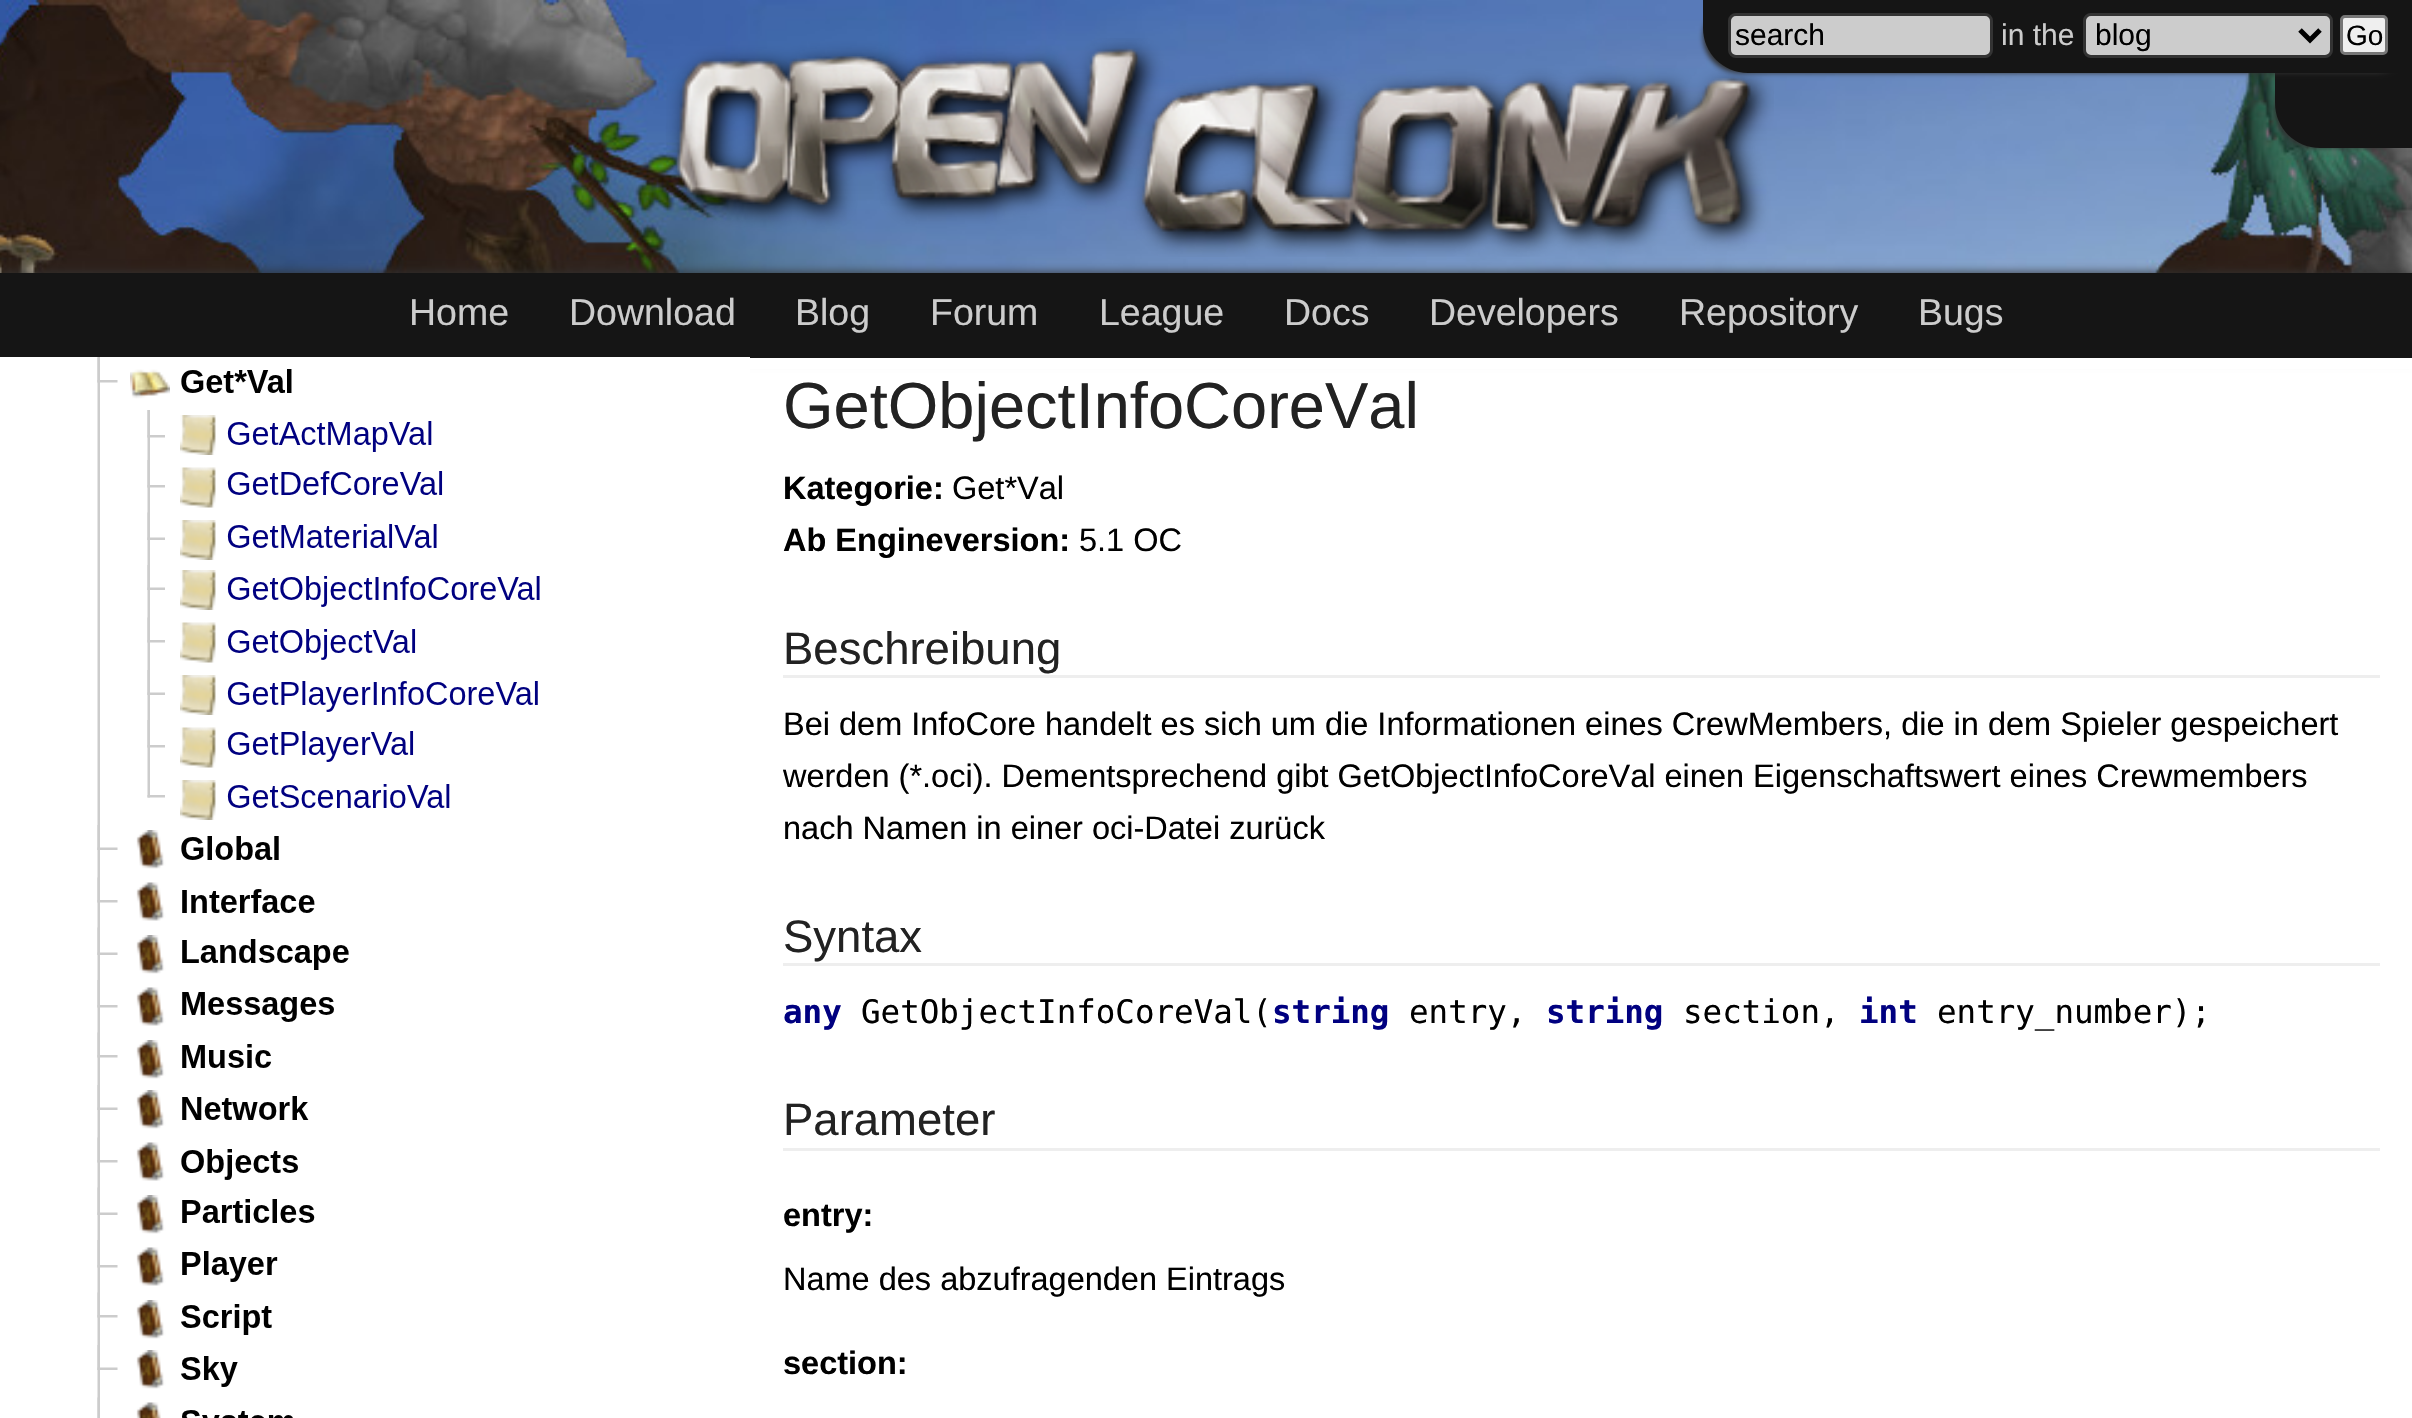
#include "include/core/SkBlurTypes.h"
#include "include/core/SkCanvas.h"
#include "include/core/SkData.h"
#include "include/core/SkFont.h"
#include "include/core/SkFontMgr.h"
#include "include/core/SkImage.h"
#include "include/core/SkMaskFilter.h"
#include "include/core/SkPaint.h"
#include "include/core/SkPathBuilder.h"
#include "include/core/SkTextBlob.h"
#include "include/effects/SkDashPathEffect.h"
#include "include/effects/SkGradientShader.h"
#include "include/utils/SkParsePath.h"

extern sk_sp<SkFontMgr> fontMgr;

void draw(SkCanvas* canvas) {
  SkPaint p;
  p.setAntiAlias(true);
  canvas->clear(SK_ColorWHITE);
  canvas->drawImageRect(SkImages::DeferredFromEncodedData(SkData::MakeFromFileName("images/1.png")), SkRect::MakeLTRB(0, 0, 2412, 273), SkSamplingOptions());
  canvas->drawImageRect(SkImages::DeferredFromEncodedData(SkData::MakeFromFileName("images/2.png")), SkRect::MakeLTRB(666, 38, 1774, 257), SkSamplingOptions());
  p.setColor(SkColorSetRGB(51, 51, 51));
  p.setMaskFilter(SkMaskFilter::MakeBlur(kNormal_SkBlurStyle, 2.5f));
  canvas->drawRoundRect(SkRect::MakeLTRB(2275, 70, 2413, 148), 45, 45, p);
  p.setMaskFilter(nullptr);
  p.setColor(SkColorSetRGB(21, 21, 21));
  canvas->drawPath(SkPathBuilder().moveTo(2275, 70).lineTo(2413, 70).lineTo(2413, 148).lineTo(2320, 148).cubicTo(2295, 148, 2275, 128, 2275, 103).close().detach(), p);
  p.setColor(SkColorSetRGB(51, 51, 51));
  p.setMaskFilter(SkMaskFilter::MakeBlur(kNormal_SkBlurStyle, 2.5f));
  canvas->drawRoundRect(SkRect::MakeLTRB(1703, 0, 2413, 73), 45, 45, p);
  p.setMaskFilter(nullptr);
  p.setColor(SkColorSetRGB(21, 21, 21));
  canvas->drawPath(SkPathBuilder().moveTo(1703, 0).lineTo(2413, 0).lineTo(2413, 73).lineTo(1748, 73).cubicTo(1723, 73, 1703, 53, 1703, 28).close().detach(), p);
  p.setColor(SkColorSetRGB(204, 204, 204));
  canvas->drawRoundRect(SkRect::MakeLTRB(1729.5f, 14.5f, 1991.5f, 56.5f), 6.5f, 6.5f, p);
  p.setStyle(SkPaint::kStroke_Style);
  p.setStrokeWidth(3);
  p.setColor(SkColorSetRGB(51, 51, 51));
  canvas->drawRoundRect(SkRect::MakeLTRB(1729.5f, 14.5f, 1991.5f, 56.5f), 6.5f, 6.5f, p);
  p.setStyle(SkPaint::kFill_Style);
  p.setColor(SkColorSetRGB(204, 204, 204));
  canvas->drawRoundRect(SkRect::MakeLTRB(2084.5f, 14.5f, 2331.5f, 56.5f), 6.5f, 6.5f, p);
  p.setStyle(SkPaint::kStroke_Style);
  p.setColor(SkColorSetRGB(51, 51, 51));
  canvas->drawRoundRect(SkRect::MakeLTRB(2084.5f, 14.5f, 2331.5f, 56.5f), 6.5f, 6.5f, p);
  p.setStrokeWidth(5);
  p.setColor(SK_ColorBLACK);
  canvas->drawPath(SkPathBuilder().moveTo(2300, 30).lineTo(2310, 40).lineTo(2320, 30).detach(), p);
  p.setStyle(SkPaint::kFill_Style);
  p.setColor(SkColorSetRGB(239, 239, 239));
  canvas->drawRoundRect(SkRect::MakeLTRB(2341.5f, 16.5f, 2386.5f, 53.5f), 3.5f, 3.5f, p);
  p.setStyle(SkPaint::kStroke_Style);
  p.setStrokeWidth(3);
  p.setColor(SkColorSetRGB(118, 118, 118));
  canvas->drawRoundRect(SkRect::MakeLTRB(2341.5f, 16.5f, 2386.5f, 53.5f), 3.5f, 3.5f, p);
  p.setStyle(SkPaint::kFill_Style);
  p.setColor(SkColorSetRGB(51, 51, 51));
  p.setMaskFilter(SkMaskFilter::MakeBlur(kNormal_SkBlurStyle, 5));
  canvas->drawRect(SkRect::MakeLTRB(0, 273, 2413, 358), p);
  p.setMaskFilter(nullptr);
  p.setColor(SkColorSetRGB(21, 21, 21));
  canvas->drawRect(SkRect::MakeLTRB(0, 273, 2412, 358), p);
  canvas->drawImageRect(SkImages::DeferredFromEncodedData(SkData::MakeFromFileName("images/3.png")), SkRect::MakeLTRB(0, 357, 750, 1418), SkSamplingOptions());
  p.setColor(SK_ColorWHITE);
  canvas->drawRect(SkRect::MakeLTRB(750, 358, 2412, 369), p);
  p.setColor(SkColorSetRGB(238, 238, 238));
  canvas->drawRect(SkRect::MakeLTRB(783, 675, 2380, 678), p);
  canvas->drawRect(SkRect::MakeLTRB(783, 963, 2380, 966), p);
  canvas->drawRect(SkRect::MakeLTRB(783, 1148, 2380, 1151), p);
  SkFont font1(fontMgr->matchFamilyStyle("Liberation Sans", SkFontStyle::Normal()), 30);
  font1.setSubpixel(true);
  p.setColor(SK_ColorBLACK);
  canvas->drawString("search", 1735, 45, font1, p);
  p.setColor(SkColorSetRGB(204, 204, 204));
  canvas->drawString("in the", 2001, 45, font1, p);
  p.setColor(SK_ColorBLACK);
  canvas->drawString("blog", 2095, 45, font1, p);
  SkFont font2(fontMgr->matchFamilyStyle("Liberation Sans", SkFontStyle::Normal()), 28);
  font2.setSubpixel(true);
  canvas->drawString("Go", 2346, 45, font2, p);
  SkFont font3(fontMgr->matchFamilyStyle("Liberation Sans", SkFontStyle::Normal()), 37.5f);
  font3.setSubpixel(true);
  p.setColor(SkColorSetRGB(204, 204, 204));
  canvas->drawString("Home", 409, 325, font3, p);
  canvas->drawString("Download", 569, 325, font3, p);
  canvas->drawString("Blog", 795, 325, font3, p);
  canvas->drawString("Forum", 930, 325, font3, p);
  canvas->drawString("League", 1099, 325, font3, p);
  canvas->drawString("Docs", 1284, 325, font3, p);
  canvas->drawString("Developers", 1429, 325, font3, p);
  canvas->drawString("Repository", 1679, 325, font3, p);
  canvas->drawString("Bugs", 1918, 325, font3, p);
  SkFont font4(fontMgr->matchFamilyStyle("Liberation Sans", SkFontStyle::Normal()), 65);
  font4.setSubpixel(true);
  p.setColor(SkColorSetRGB(34, 34, 34));
  canvas->drawString("GetObjectInfoCoreVal", 783, 428, font4, p);
  SkFont font5(fontMgr->matchFamilyStyle("Liberation Sans", SkFontStyle::Bold()), 32.5f);
  font5.setSubpixel(true);
  p.setColor(SK_ColorBLACK);
  canvas->drawString("Kategorie:", 783, 499, font5, p);
  SkFont font6(fontMgr->matchFamilyStyle("Liberation Sans", SkFontStyle::Normal()), 32.5f);
  font6.setSubpixel(true);
  canvas->drawString("Get*Val", 952, 499, font6, p);
  canvas->drawString("Ab Engineversion:", 783, 551, font5, p);
  canvas->drawString("5.1 OC", 1079, 551, font6, p);
  SkFont font7(fontMgr->matchFamilyStyle("Liberation Sans", SkFontStyle::Normal()), 45.5f);
  font7.setSubpixel(true);
  p.setColor(SkColorSetRGB(34, 34, 34));
  canvas->drawString("Beschreibung", 783, 664, font7, p);
  p.setColor(SK_ColorBLACK);
  canvas->drawString("Bei dem InfoCore handelt es sich um die Informationen eines CrewMembers, die in dem Spieler gespeichert", 783, 735, font6, p);
  canvas->drawString("werden (*.oci). Dementsprechend gibt GetObjectInfoCoreVal einen Eigenschaftswert eines Crewmembers", 783, 787, font6, p);
  canvas->drawString("nach Namen in einer oci-Datei zurück", 783, 839, font6, p);
  p.setColor(SkColorSetRGB(34, 34, 34));
  canvas->drawString("Syntax", 783, 952, font7, p);
  SkFont font8(fontMgr->matchFamilyStyle("DejaVu Sans Mono", SkFontStyle::Bold()), 32.5f);
  font8.setSubpixel(true);
  p.setColor(SkColorSetRGB(0, 0, 128));
  canvas->drawString("any", 783, 1023, font8, p);
  SkFont font9(fontMgr->matchFamilyStyle("DejaVu Sans Mono", SkFontStyle::Normal()), 32.5f);
  font9.setSubpixel(true);
  p.setColor(SK_ColorBLACK);
  canvas->drawString("GetObjectInfoCoreVal(", 861, 1023, font9, p);
  p.setColor(SkColorSetRGB(0, 0, 128));
  canvas->drawString("string", 1272, 1023, font8, p);
  p.setColor(SK_ColorBLACK);
  canvas->drawString("entry,", 1409, 1023, font9, p);
  p.setColor(SkColorSetRGB(0, 0, 128));
  canvas->drawString("string", 1546, 1023, font8, p);
  p.setColor(SK_ColorBLACK);
  canvas->drawString("section,", 1683, 1023, font9, p);
  p.setColor(SkColorSetRGB(0, 0, 128));
  canvas->drawString("int", 1859, 1023, font8, p);
  p.setColor(SK_ColorBLACK);
  canvas->drawString("entry_number);", 1937, 1023, font9, p);
  p.setColor(SkColorSetRGB(34, 34, 34));
  canvas->drawString("Parameter", 783, 1135, font7, p);
  p.setColor(SK_ColorBLACK);
  canvas->drawString("entry:", 783, 1226, font5, p);
  canvas->drawString("Name des abzufragenden Eintrags", 783, 1290, font6, p);
  canvas->drawString("section:", 783, 1374, font5, p);
}
